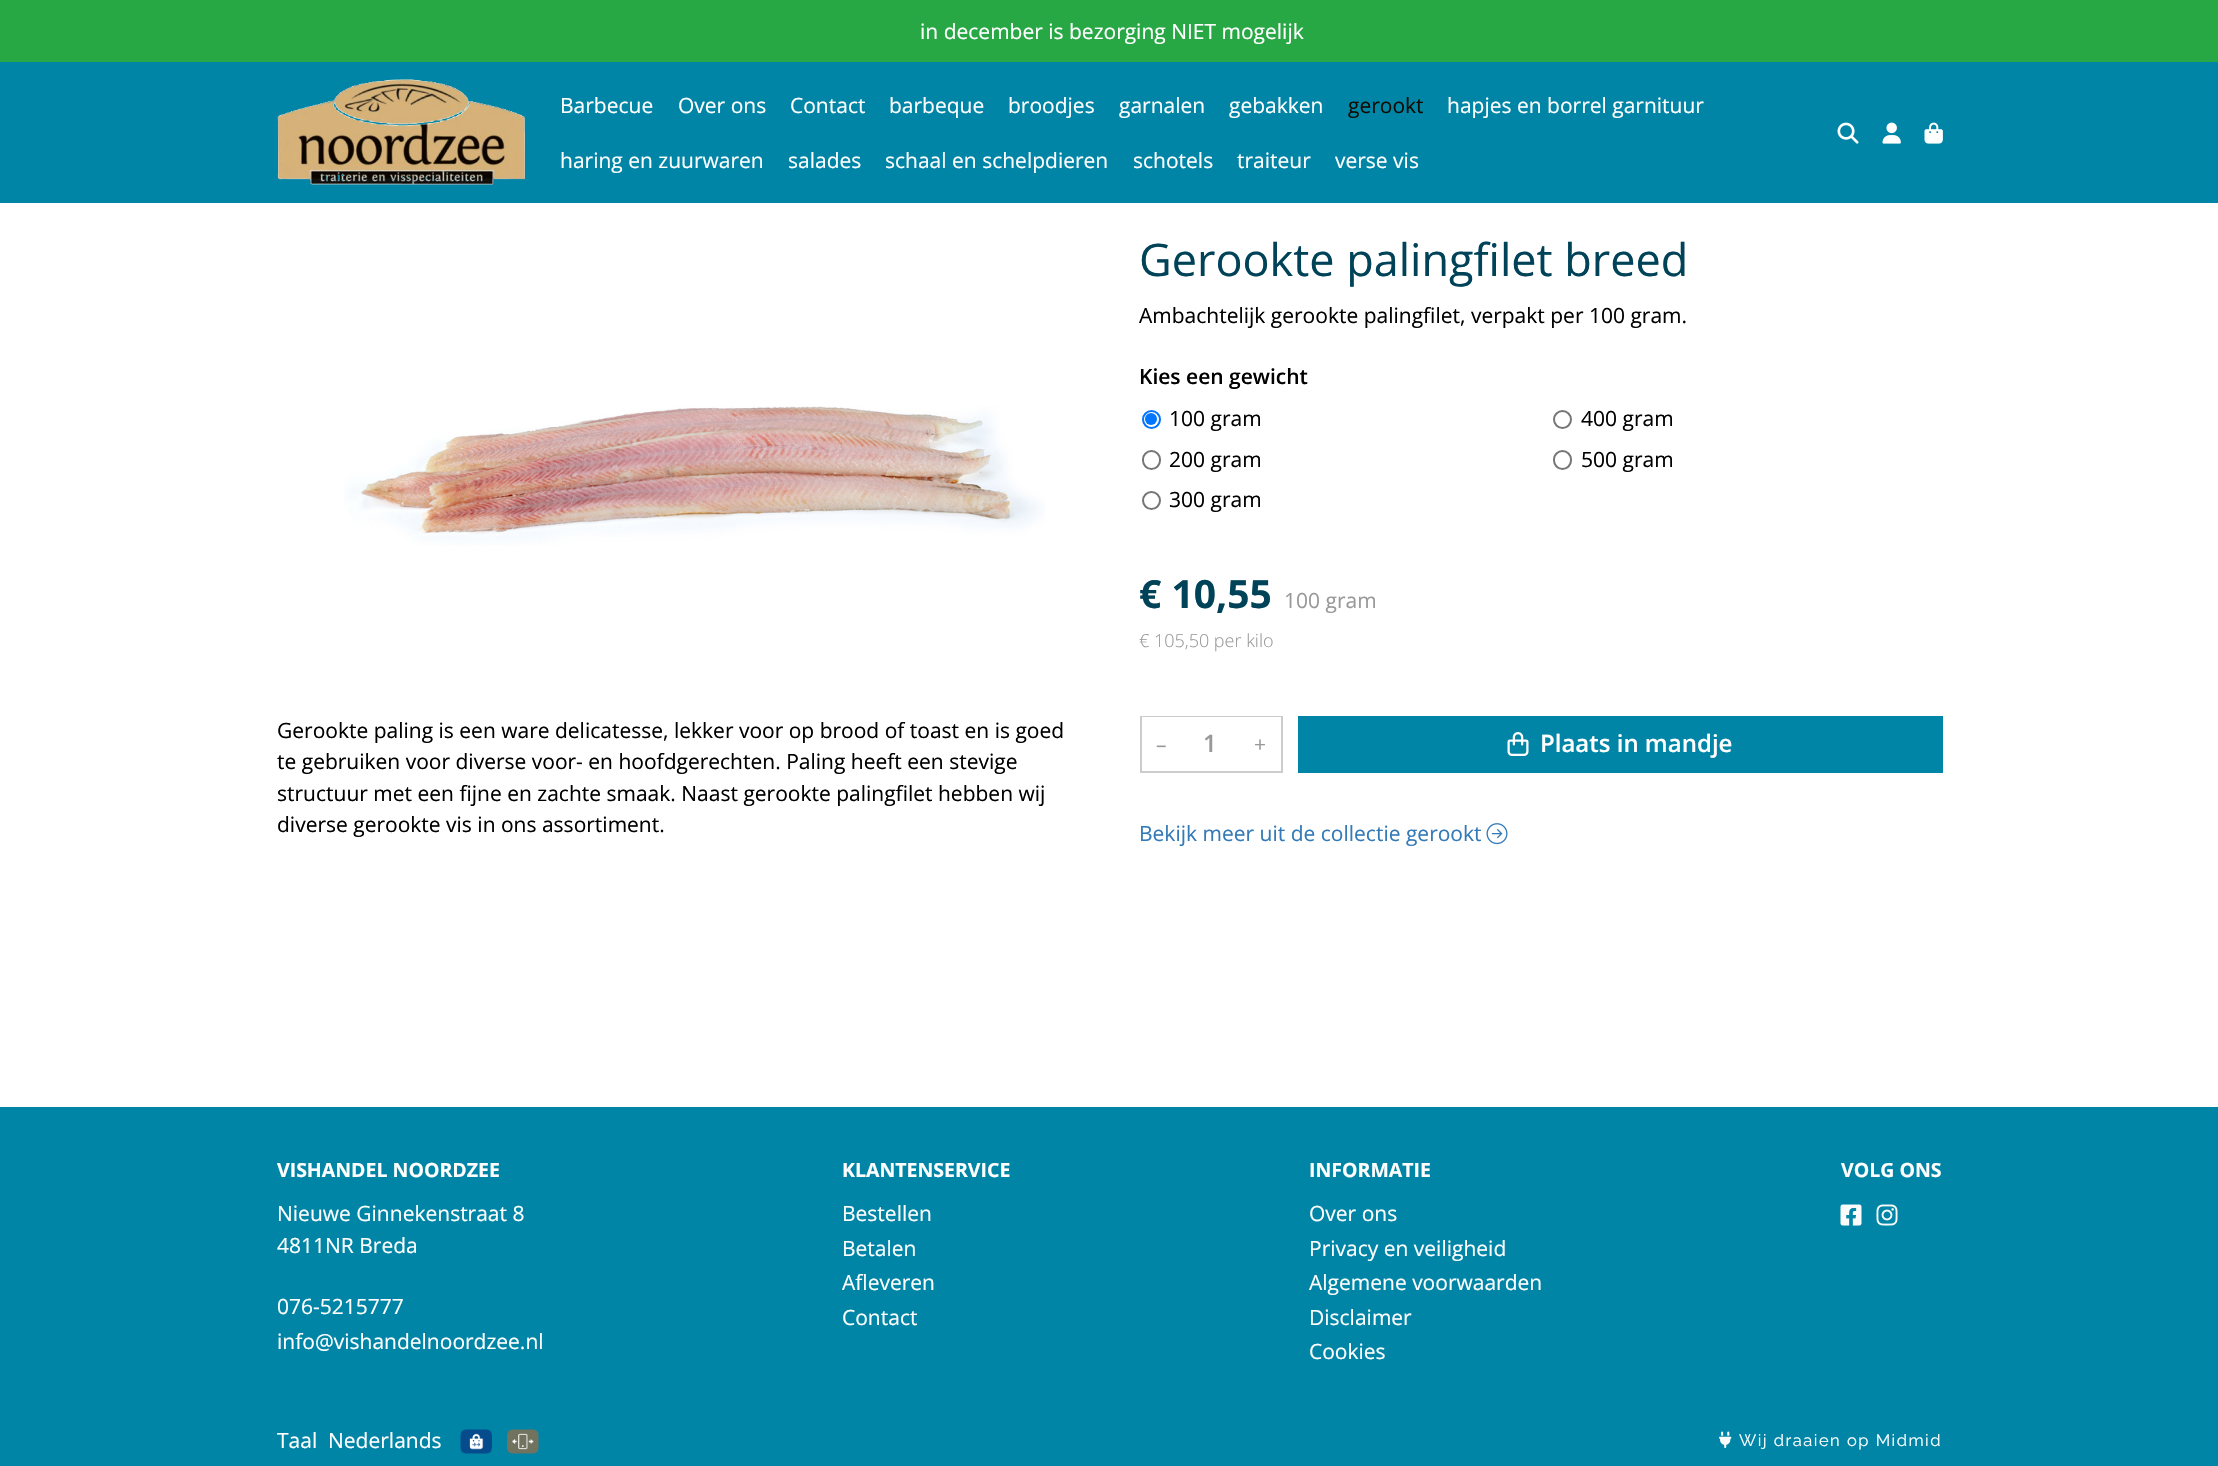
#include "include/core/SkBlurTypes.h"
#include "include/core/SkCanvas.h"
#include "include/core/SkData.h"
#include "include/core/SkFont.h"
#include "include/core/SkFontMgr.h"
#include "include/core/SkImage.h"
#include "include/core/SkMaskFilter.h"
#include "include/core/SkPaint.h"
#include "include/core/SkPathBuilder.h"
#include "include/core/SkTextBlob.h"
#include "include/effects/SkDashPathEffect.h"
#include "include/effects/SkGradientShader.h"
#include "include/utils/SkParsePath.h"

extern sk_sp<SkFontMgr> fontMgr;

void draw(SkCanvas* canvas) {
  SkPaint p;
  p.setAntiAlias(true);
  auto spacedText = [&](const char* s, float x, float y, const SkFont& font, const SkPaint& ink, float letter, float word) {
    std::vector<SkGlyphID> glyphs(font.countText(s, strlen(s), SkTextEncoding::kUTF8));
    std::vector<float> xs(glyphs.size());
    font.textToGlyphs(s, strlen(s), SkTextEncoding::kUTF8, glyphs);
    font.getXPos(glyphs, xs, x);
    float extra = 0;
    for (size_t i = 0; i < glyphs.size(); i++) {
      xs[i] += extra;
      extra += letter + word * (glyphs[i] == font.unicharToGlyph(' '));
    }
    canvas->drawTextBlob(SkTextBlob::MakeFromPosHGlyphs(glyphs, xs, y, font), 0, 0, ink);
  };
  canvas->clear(SK_ColorWHITE);
  p.setColor(SkColorSetRGB(40, 167, 69));
  canvas->drawRect(SkRect::MakeLTRB(0, 0, 2218, 62), p);
  p.setColor(SkColorSetRGB(0, 133, 166));
  canvas->drawRect(SkRect::MakeLTRB(0, 62, 2218, 203), p);
  canvas->drawImageRect(SkImages::DeferredFromEncodedData(SkData::MakeFromFileName("images/1.png")), SkRect::MakeLTRB(277, 79, 525, 185), SkSamplingOptions());
  canvas->drawImageRect(SkImages::DeferredFromEncodedData(SkData::MakeFromFileName("images/2.png")), SkRect::MakeLTRB(1837, 122, 1859, 144), SkSamplingOptions());
  canvas->drawImageRect(SkImages::DeferredFromEncodedData(SkData::MakeFromFileName("images/3.png")), SkRect::MakeLTRB(1882, 122, 1901, 144), SkSamplingOptions());
  canvas->drawImageRect(SkImages::DeferredFromEncodedData(SkData::MakeFromFileName("images/4.png")), SkRect::MakeLTRB(1924, 122, 1943, 144), SkSamplingOptions());
  canvas->drawImageRect(SkImages::DeferredFromEncodedData(SkData::MakeFromFileName("images/5.png")), SkRect::MakeLTRB(344, 406, 1045, 546), SkSamplingOptions());
  p.setStyle(SkPaint::kStroke_Style);
  p.setStrokeWidth(2);
  p.setColor(SkColorSetRGB(0, 117, 255));
  canvas->drawCircle(1151.5f, 419.5f, 8.5f, p);
  p.setStyle(SkPaint::kFill_Style);
  canvas->drawCircle(1151, 419, 6, p);
  p.setStyle(SkPaint::kStroke_Style);
  p.setColor(SkColorSetRGB(118, 118, 118));
  canvas->drawCircle(1562.5f, 419.5f, 8.5f, p);
  canvas->drawRoundRect(SkRect::MakeLTRB(1143, 451, 1160, 469), 8.5f, 8.5f, p);
  canvas->drawRoundRect(SkRect::MakeLTRB(1554, 451, 1571, 469), 8.5f, 8.5f, p);
  canvas->drawCircle(1151.5f, 500.5f, 8.5f, p);
  p.setColor(SkColorSetRGB(204, 204, 204));
  canvas->drawRect(SkRect::MakeLTRB(1141, 717, 1282, 772), p);
  p.setStyle(SkPaint::kFill_Style);
  p.setColor(SK_ColorWHITE);
  canvas->drawRect(SkRect::MakeLTRB(1142, 717, 1281, 718), p);
  p.setColor(SkColorSetRGB(0, 133, 166));
  canvas->drawRect(SkRect::MakeLTRB(1298, 716, 1943, 773), p);
  canvas->drawImageRect(SkImages::DeferredFromEncodedData(SkData::MakeFromFileName("images/6.png")), SkRect::MakeLTRB(1507, 732, 1529, 756), SkSamplingOptions());
  canvas->drawImageRect(SkImages::DeferredFromEncodedData(SkData::MakeFromFileName("images/7.png")), SkRect::MakeLTRB(1486, 823, 1508, 845), SkSamplingOptions());
  canvas->drawRect(SkRect::MakeLTRB(0, 1107, 2218, 1466), p);
  canvas->drawImageRect(SkImages::DeferredFromEncodedData(SkData::MakeFromFileName("images/8.png")), SkRect::MakeLTRB(1840, 1204, 1862, 1226), SkSamplingOptions());
  canvas->drawImageRect(SkImages::DeferredFromEncodedData(SkData::MakeFromFileName("images/9.png")), SkRect::MakeLTRB(1876, 1204, 1898, 1226), SkSamplingOptions());
  canvas->drawImageRect(SkImages::DeferredFromEncodedData(SkData::MakeFromFileName("images/10.png")), SkRect::MakeLTRB(460, 1429, 492, 1454), SkSamplingOptions());
  canvas->drawImageRect(SkImages::DeferredFromEncodedData(SkData::MakeFromFileName("images/11.png")), SkRect::MakeLTRB(507, 1429, 539, 1454), SkSamplingOptions());
  canvas->drawImageRect(SkImages::DeferredFromEncodedData(SkData::MakeFromFileName("images/12.png")), SkRect::MakeLTRB(1719, 1431, 1732, 1448), SkSamplingOptions());
  SkFont font1(fontMgr->matchFamilyStyle("Open Sans", SkFontStyle::Normal()), 21);
  font1.setSubpixel(true);
  p.setColor(SK_ColorWHITE);
  canvas->drawString("in december is bezorging NIET mogelijk", 920, 39, font1, p);
  canvas->drawString("Barbecue", 560, 113, font1, p);
  canvas->drawString("Over ons", 678, 113, font1, p);
  canvas->drawString("Contact", 790, 113, font1, p);
  canvas->drawString("barbeque", 889, 113, font1, p);
  canvas->drawString("broodjes", 1008, 113, font1, p);
  canvas->drawString("garnalen", 1119, 113, font1, p);
  canvas->drawString("gebakken", 1229, 113, font1, p);
  p.setColor(SkColorSetRGB(17, 13, 4));
  canvas->drawString("gerookt", 1348, 113, font1, p);
  p.setColor(SK_ColorWHITE);
  canvas->drawString("hapjes en borrel garnituur", 1447, 113, font1, p);
  canvas->drawString("haring en zuurwaren", 560, 168, font1, p);
  canvas->drawString("salades", 788, 168, font1, p);
  canvas->drawString("schaal en schelpdieren", 885, 168, font1, p);
  canvas->drawString("schotels", 1133, 168, font1, p);
  canvas->drawString("traiteur", 1237, 168, font1, p);
  canvas->drawString("verse vis", 1335, 168, font1, p);
  p.setColor(SK_ColorBLACK);
  canvas->drawString("Gerookte paling is een ware delicatesse, lekker voor op brood of toast en is goed", 277, 738, font1, p);
  canvas->drawString("te gebruiken voor diverse voor- en hoofdgerechten. Paling heeft een stevige", 277, 769, font1, p);
  canvas->drawString("structuur met een fijne en zachte smaak. Naast gerookte palingfilet hebben wij", 277, 801, font1, p);
  canvas->drawString("diverse gerookte vis in ons assortiment.", 277, 832, font1, p);
  SkFont font2(fontMgr->matchFamilyStyle("Open Sans", SkFontStyle::Normal()), 45);
  font2.setSubpixel(true);
  p.setColor(SkColorSetRGB(0, 67, 88));
  canvas->drawString("Gerookte palingfilet breed", 1139, 276, font2, p);
  p.setColor(SK_ColorBLACK);
  canvas->drawString("Ambachtelijk gerookte palingfilet, verpakt per 100 gram.", 1139, 323, font1, p);
  SkFont font3(fontMgr->matchFamilyStyle("Open Sans", SkFontStyle(600, SkFontStyle::kNormal_Width, SkFontStyle::kUpright_Slant)), 21);
  font3.setSubpixel(true);
  canvas->drawString("Kies een gewicht", 1139, 384, font3, p);
  canvas->drawString("100 gram", 1169, 426, font1, p);
  canvas->drawString("400 gram", 1581, 426, font1, p);
  canvas->drawString("200 gram", 1169, 467, font1, p);
  canvas->drawString("500 gram", 1581, 467, font1, p);
  canvas->drawString("300 gram", 1169, 507, font1, p);
  SkFont font4(fontMgr->matchFamilyStyle("Open Sans", SkFontStyle::Bold()), 39);
  font4.setSubpixel(true);
  p.setColor(SkColorSetRGB(0, 67, 88));
  canvas->drawString("€ 10,55", 1139, 608, font4, p);
  p.setColor(SkColorSetRGB(153, 153, 153));
  canvas->drawString("100 gram", 1284, 608, font1, p);
  SkFont font5(fontMgr->matchFamilyStyle("Open Sans", SkFontStyle(300, SkFontStyle::kNormal_Width, SkFontStyle::kUpright_Slant)), 18);
  font5.setSubpixel(true);
  canvas->drawString("€ 105,50 per kilo", 1139, 647, font5, p);
  canvas->drawString("–", 1156, 752, font1, p);
  SkFont font6(fontMgr->matchFamilyStyle("Open Sans", SkFontStyle(600, SkFontStyle::kNormal_Width, SkFontStyle::kUpright_Slant)), 24);
  font6.setSubpixel(true);
  canvas->drawString("1", 1203, 752, font6, p);
  canvas->drawString("+", 1254, 752, font1, p);
  p.setColor(SK_ColorWHITE);
  canvas->drawString("Plaats in mandje", 1540, 752, font6, p);
  p.setColor(SkColorSetRGB(51, 122, 183));
  canvas->drawString("Bekijk meer uit de collectie gerookt", 1139, 841, font1, p);
  SkFont font7(fontMgr->matchFamilyStyle("Open Sans", SkFontStyle::Bold()), 19.5f);
  font7.setSubpixel(true);
  p.setColor(SK_ColorWHITE);
  canvas->drawString("VISHANDEL NOORDZEE", 277, 1177, font7, p);
  canvas->drawString("Nieuwe Ginnekenstraat 8", 277, 1221, font1, p);
  canvas->drawString("4811NR Breda", 277, 1253, font1, p);
  canvas->drawString("076-5215777", 277, 1314, font1, p);
  canvas->drawString("info@vishandelnoordzee.nl", 277, 1349, font1, p);
  canvas->drawString("KLANTENSERVICE", 842, 1177, font7, p);
  canvas->drawString("Bestellen", 842, 1221, font1, p);
  canvas->drawString("Betalen", 842, 1256, font1, p);
  canvas->drawString("Afleveren", 842, 1290, font1, p);
  canvas->drawString("Contact", 842, 1325, font1, p);
  canvas->drawString("INFORMATIE", 1309, 1177, font7, p);
  canvas->drawString("Over ons", 1309, 1221, font1, p);
  canvas->drawString("Privacy en veiligheid", 1309, 1256, font1, p);
  canvas->drawString("Algemene voorwaarden", 1309, 1290, font1, p);
  canvas->drawString("Disclaimer", 1309, 1325, font1, p);
  canvas->drawString("Cookies", 1309, 1359, font1, p);
  canvas->drawString("VOLG ONS", 1841, 1177, font7, p);
  canvas->drawString("Taal", 277, 1448, font1, p);
  canvas->drawString("Nederlands", 328, 1448, font1, p);
  SkFont font8(fontMgr->matchFamilyStyle("Raleway", SkFontStyle::Normal()), 16.5f);
  font8.setSubpixel(true);
  spacedText("Wij draaien op Midmid", 1739, 1446, font8, p, 1.5f, 0);
}
